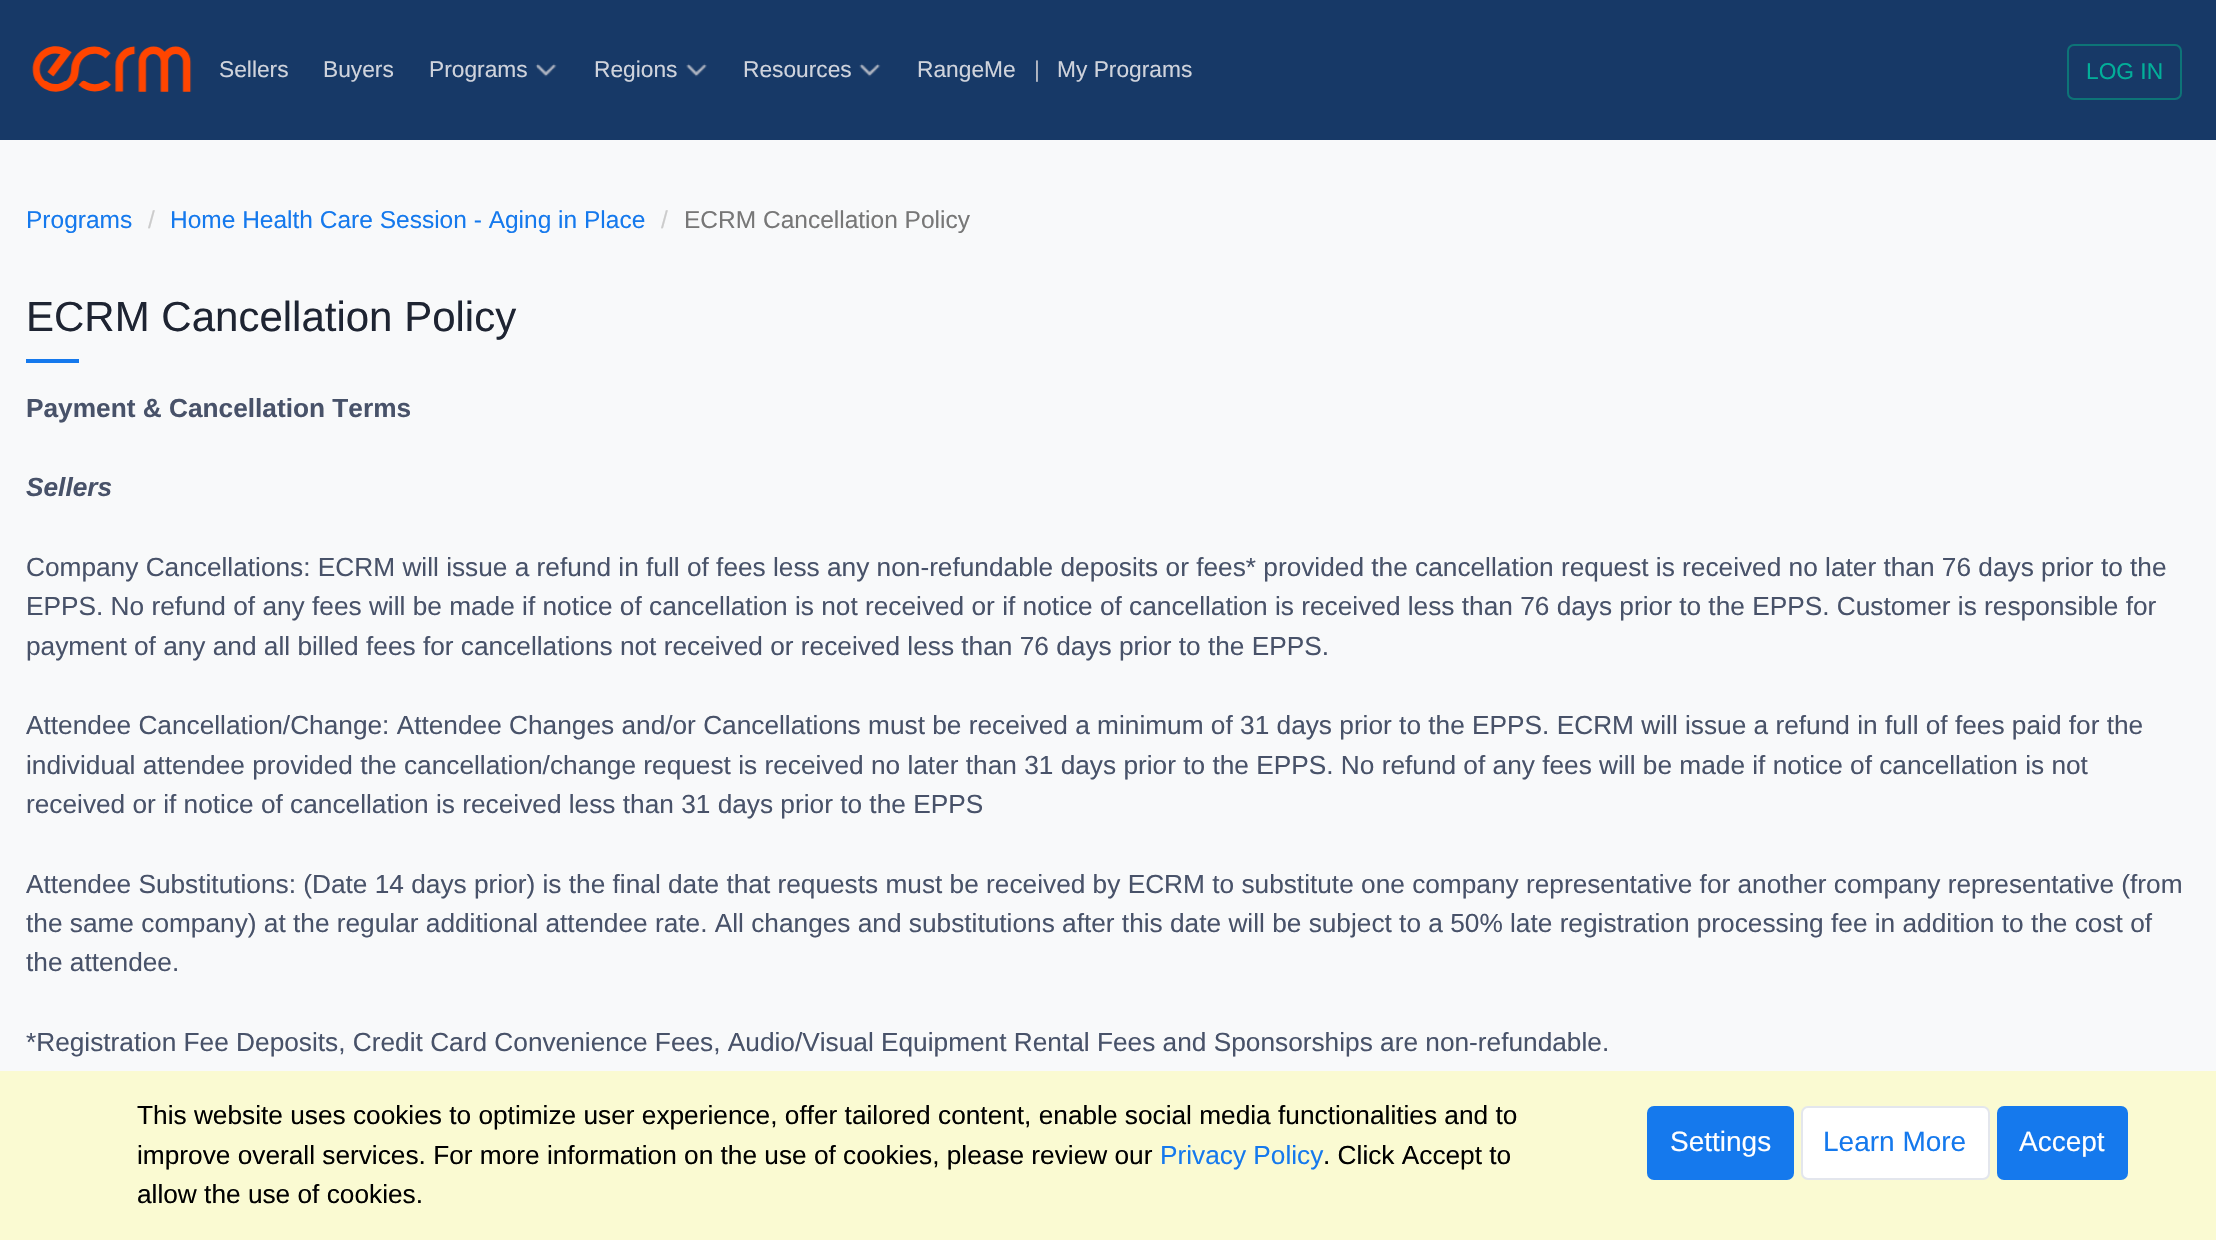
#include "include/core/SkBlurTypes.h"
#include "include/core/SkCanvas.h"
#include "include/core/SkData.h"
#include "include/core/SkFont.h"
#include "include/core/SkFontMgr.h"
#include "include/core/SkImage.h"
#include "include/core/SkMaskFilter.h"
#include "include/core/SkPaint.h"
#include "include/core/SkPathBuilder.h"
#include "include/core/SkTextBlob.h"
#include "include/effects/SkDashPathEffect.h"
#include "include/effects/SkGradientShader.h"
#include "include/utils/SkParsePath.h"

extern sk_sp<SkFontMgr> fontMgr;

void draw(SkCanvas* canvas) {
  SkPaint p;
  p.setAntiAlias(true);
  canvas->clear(SkColorSetRGB(248, 249, 250));
  p.setColor(SkColorSetRGB(23, 57, 103));
  canvas->drawRect(SkRect::MakeLTRB(0, 0, 2216, 140), p);
  canvas->drawImageRect(SkImages::DeferredFromEncodedData(SkData::MakeFromFileName("images/1.png")), SkRect::MakeLTRB(32, 46, 192, 92), SkSamplingOptions());
  canvas->drawImageRect(SkImages::DeferredFromEncodedData(SkData::MakeFromFileName("images/2.png")), SkRect::MakeLTRB(535, 63, 557, 77), SkSamplingOptions());
  canvas->drawImageRect(SkImages::DeferredFromEncodedData(SkData::MakeFromFileName("images/3.png")), SkRect::MakeLTRB(686, 63, 707, 77), SkSamplingOptions());
  canvas->drawImageRect(SkImages::DeferredFromEncodedData(SkData::MakeFromFileName("images/4.png")), SkRect::MakeLTRB(859, 63, 881, 77), SkSamplingOptions());
  p.setStyle(SkPaint::kStroke_Style);
  p.setStrokeWidth(2);
  p.setColor(SkColorSetRGB(13, 116, 119));
  canvas->drawRoundRect(SkRect::MakeLTRB(2068, 45, 2181, 99), 6, 6, p);
  p.setStyle(SkPaint::kFill_Style);
  p.setColor(SkColorSetRGB(21, 121, 237));
  canvas->drawRect(SkRect::MakeLTRB(26, 359, 79, 363), p);
  p.setColor(SkColorSetRGB(250, 250, 210));
  canvas->drawRect(SkRect::MakeLTRB(0, 1071, 2216, 1240), p);
  p.setColor(SkColorSetRGB(21, 121, 237));
  canvas->drawRoundRect(SkRect::MakeLTRB(1648, 1107, 1793, 1179), 6, 6, p);
  p.setStyle(SkPaint::kStroke_Style);
  canvas->drawRoundRect(SkRect::MakeLTRB(1648, 1107, 1793, 1179), 6, 6, p);
  p.setStyle(SkPaint::kFill_Style);
  p.setColor(SK_ColorWHITE);
  canvas->drawRoundRect(SkRect::MakeLTRB(1802, 1107, 1989, 1179), 6, 6, p);
  p.setStyle(SkPaint::kStroke_Style);
  p.setColor(SkColorSetRGB(227, 230, 237));
  canvas->drawRoundRect(SkRect::MakeLTRB(1802, 1107, 1989, 1179), 6, 6, p);
  p.setStyle(SkPaint::kFill_Style);
  p.setColor(SkColorSetRGB(21, 121, 237));
  canvas->drawRoundRect(SkRect::MakeLTRB(1998, 1107, 2127, 1179), 6, 6, p);
  p.setStyle(SkPaint::kStroke_Style);
  canvas->drawRoundRect(SkRect::MakeLTRB(1998, 1107, 2127, 1179), 6, 6, p);
  SkFont font1(fontMgr->matchFamilyStyle("Liberation Sans", SkFontStyle::Normal()), 22.75f);
  font1.setSubpixel(true);
  p.setStyle(SkPaint::kFill_Style);
  p.setColor(SkColorSetRGB(207, 211, 220));
  canvas->drawString("Sellers", 219, 77, font1, p);
  canvas->drawString("Buyers", 323, 77, font1, p);
  canvas->drawString("Programs", 429, 77, font1, p);
  canvas->drawString("Regions", 594, 77, font1, p);
  canvas->drawString("Resources", 743, 77, font1, p);
  canvas->drawString("RangeMe", 917, 77, font1, p);
  p.setColor(SkColorSetRGB(181, 186, 197));
  canvas->drawString("|", 1034, 77, font1, p);
  p.setColor(SkColorSetRGB(207, 211, 220));
  canvas->drawString("My Programs", 1057, 77, font1, p);
  p.setColor(SkColorSetRGB(2, 175, 153));
  canvas->drawString("LOG IN", 2086, 79, font1, p);
  SkFont font2(fontMgr->matchFamilyStyle("Liberation Sans", SkFontStyle::Normal()), 24.5f);
  font2.setSubpixel(true);
  p.setColor(SkColorSetRGB(21, 121, 237));
  canvas->drawString("Programs", 26, 228, font2, p);
  p.setColor(SkColorSetRGB(204, 204, 204));
  canvas->drawString("/", 148, 228, font2, p);
  p.setColor(SkColorSetRGB(21, 121, 237));
  canvas->drawString("Home Health Care Session - Aging in Place", 170, 228, font2, p);
  p.setColor(SkColorSetRGB(204, 204, 204));
  canvas->drawString("/", 661, 228, font2, p);
  p.setColor(SkColorSetRGB(119, 119, 119));
  canvas->drawString("ECRM Cancellation Policy", 684, 228, font2, p);
  SkFont font3(fontMgr->matchFamilyStyle("Liberation Sans", SkFontStyle::Normal()), 42);
  font3.setSubpixel(true);
  p.setColor(SkColorSetRGB(30, 36, 50));
  canvas->drawString("ECRM Cancellation Policy", 26, 331, font3, p);
  SkFont font4(fontMgr->matchFamilyStyle("Liberation Sans", SkFontStyle::Bold()), 26.25f);
  font4.setSubpixel(true);
  p.setColor(SkColorSetRGB(72, 82, 105));
  canvas->drawString("Payment & Cancellation Terms", 26, 417, font4, p);
  SkFont font5(fontMgr->matchFamilyStyle("Liberation Sans", SkFontStyle::BoldItalic()), 26.25f);
  font5.setSubpixel(true);
  canvas->drawString("Sellers", 26, 496, font5, p);
  SkFont font6(fontMgr->matchFamilyStyle("Liberation Sans", SkFontStyle::Normal()), 26.25f);
  font6.setSubpixel(true);
  canvas->drawString("Company Cancellations: ECRM will issue a refund in full of fees less any non-refundable deposits or fees* provided the cancellation request is received no later than 76 days prior to the", 26, 576, font6, p);
  canvas->drawString("EPPS. No refund of any fees will be made if notice of cancellation is not received or if notice of cancellation is received less than 76 days prior to the EPPS. Customer is responsible for", 26, 615, font6, p);
  canvas->drawString("payment of any and all billed fees for cancellations not received or received less than 76 days prior to the EPPS.", 26, 655, font6, p);
  canvas->drawString("Attendee Cancellation/Change: Attendee Changes and/or Cancellations must be received a minimum of 31 days prior to the EPPS. ECRM will issue a refund in full of fees paid for the", 26, 734, font6, p);
  canvas->drawString("individual attendee provided the cancellation/change request is received no later than 31 days prior to the EPPS. No refund of any fees will be made if notice of cancellation is not", 26, 774, font6, p);
  canvas->drawString("received or if notice of cancellation is received less than 31 days prior to the EPPS", 26, 813, font6, p);
  canvas->drawString("Attendee Substitutions: (Date 14 days prior) is the final date that requests must be received by ECRM to substitute one company representative for another company representative (from", 26, 893, font6, p);
  canvas->drawString("the same company) at the regular additional attendee rate. All changes and substitutions after this date will be subject to a 50% late registration processing fee in addition to the cost of", 26, 932, font6, p);
  canvas->drawString("the attendee.", 26, 971, font6, p);
  canvas->drawString("*Registration Fee Deposits, Credit Card Convenience Fees, Audio/Visual Equipment Rental Fees and Sponsorships are non-refundable.", 26, 1051, font6, p);
  p.setColor(SK_ColorBLACK);
  canvas->drawString("This website uses cookies to optimize user experience, offer tailored content, enable social media functionalities and to", 137, 1124, font6, p);
  canvas->drawString("improve overall services. For more information on the use of cookies, please review our", 137, 1164, font6, p);
  p.setColor(SkColorSetRGB(21, 121, 237));
  canvas->drawString("Privacy Policy", 1160, 1164, font6, p);
  p.setColor(SK_ColorBLACK);
  canvas->drawString(". Click Accept to", 1323, 1164, font6, p);
  canvas->drawString("allow the use of cookies.", 137, 1203, font6, p);
  SkFont font7(fontMgr->matchFamilyStyle("Liberation Sans", SkFontStyle::Normal()), 28);
  font7.setSubpixel(true);
  p.setColor(SK_ColorWHITE);
  canvas->drawString("Settings", 1670, 1151, font7, p);
  p.setColor(SkColorSetRGB(21, 121, 237));
  canvas->drawString("Learn More", 1823, 1151, font7, p);
  p.setColor(SK_ColorWHITE);
  canvas->drawString("Accept", 2019, 1151, font7, p);
}
